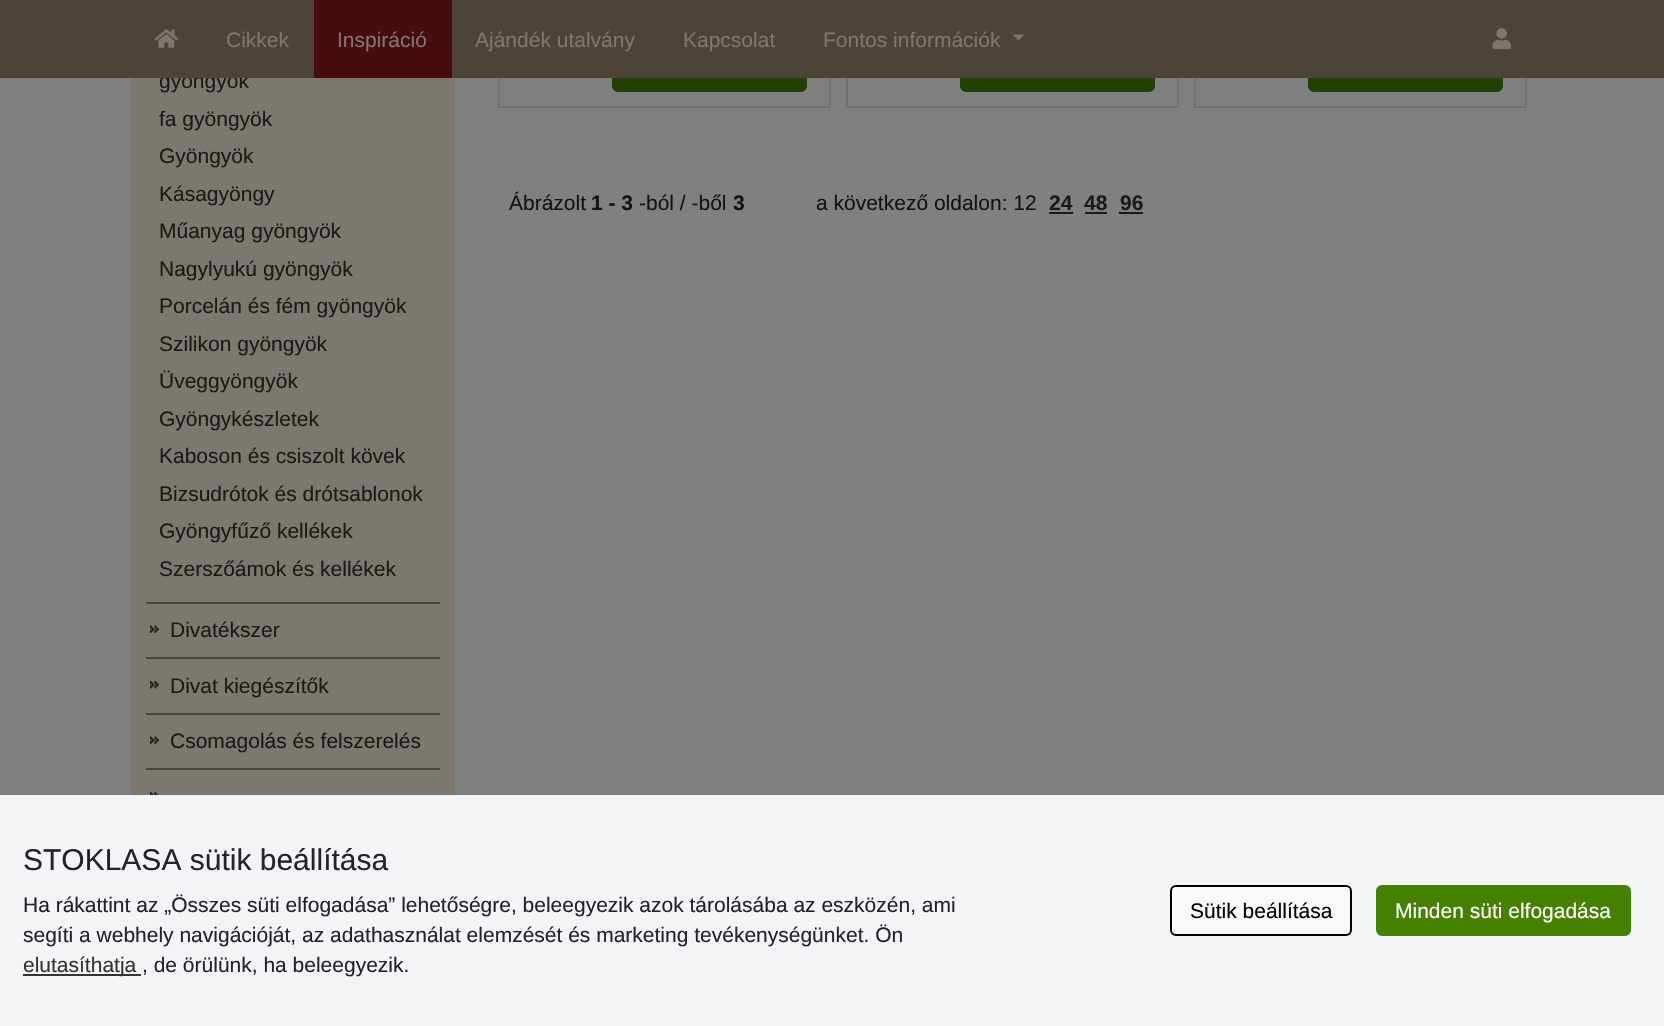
#include "include/core/SkBlurTypes.h"
#include "include/core/SkCanvas.h"
#include "include/core/SkData.h"
#include "include/core/SkFont.h"
#include "include/core/SkFontMgr.h"
#include "include/core/SkImage.h"
#include "include/core/SkMaskFilter.h"
#include "include/core/SkPaint.h"
#include "include/core/SkPathBuilder.h"
#include "include/core/SkTextBlob.h"
#include "include/effects/SkDashPathEffect.h"
#include "include/effects/SkGradientShader.h"
#include "include/utils/SkParsePath.h"

extern sk_sp<SkFontMgr> fontMgr;

void draw(SkCanvas* canvas) {
  SkPaint p;
  p.setAntiAlias(true);
  canvas->clear(SkColorSetRGB(128, 128, 128));
  p.setColor(SkColorSetRGB(124, 119, 111));
  canvas->drawRect(SkRect::MakeLTRB(131, 78, 455, 795), p);
  canvas->drawImageRect(SkImages::DeferredFromEncodedData(SkData::MakeFromFileName("images/3.png")), SkRect::MakeLTRB(150, 625, 159, 633), SkSamplingOptions());
  p.setColor(SkColorSetRGB(77, 68, 56));
  canvas->drawRect(SkRect::MakeLTRB(146, 602, 440, 604), p);
  canvas->drawImageRect(SkImages::DeferredFromEncodedData(SkData::MakeFromFileName("images/4.png")), SkRect::MakeLTRB(150, 681, 159, 689), SkSamplingOptions());
  canvas->drawRect(SkRect::MakeLTRB(146, 657, 440, 659), p);
  canvas->drawImageRect(SkImages::DeferredFromEncodedData(SkData::MakeFromFileName("images/3.png")), SkRect::MakeLTRB(150, 736, 159, 744), SkSamplingOptions());
  canvas->drawRect(SkRect::MakeLTRB(146, 713, 440, 715), p);
  canvas->drawImageRect(SkImages::DeferredFromEncodedData(SkData::MakeFromFileName("images/5.png")), SkRect::MakeLTRB(150, 792, 159, 795), SkSamplingOptions());
  canvas->drawRect(SkRect::MakeLTRB(146, 768, 440, 770), p);
  p.setStyle(SkPaint::kStroke_Style);
  p.setStrokeWidth(2);
  p.setColor(SkColorSetRGB(111, 113, 115));
  canvas->drawRect(SkRect::MakeLTRB(499, -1, 830, 107), p);
  p.setStyle(SkPaint::kFill_Style);
  p.setColor(SkColorSetRGB(35, 64, 0));
  canvas->drawRoundRect(SkRect::MakeLTRB(613, 48, 806, 91), 5, 5, p);
  p.setStyle(SkPaint::kStroke_Style);
  canvas->drawRoundRect(SkRect::MakeLTRB(613, 48, 806, 91), 5, 5, p);
  p.setColor(SkColorSetRGB(111, 113, 115));
  canvas->drawRect(SkRect::MakeLTRB(847, -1, 1178, 107), p);
  p.setStyle(SkPaint::kFill_Style);
  p.setColor(SkColorSetRGB(35, 64, 0));
  canvas->drawRoundRect(SkRect::MakeLTRB(961, 48, 1154, 91), 5, 5, p);
  p.setStyle(SkPaint::kStroke_Style);
  canvas->drawRoundRect(SkRect::MakeLTRB(961, 48, 1154, 91), 5, 5, p);
  p.setColor(SkColorSetRGB(111, 113, 115));
  canvas->drawRect(SkRect::MakeLTRB(1195, -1, 1526, 107), p);
  p.setStyle(SkPaint::kFill_Style);
  p.setColor(SkColorSetRGB(35, 64, 0));
  canvas->drawRoundRect(SkRect::MakeLTRB(1309, 48, 1502, 91), 5, 5, p);
  p.setStyle(SkPaint::kStroke_Style);
  canvas->drawRoundRect(SkRect::MakeLTRB(1309, 48, 1502, 91), 5, 5, p);
  p.setStyle(SkPaint::kFill_Style);
  p.setColor(SkColorSetRGB(26, 26, 26));
  canvas->drawRect(SkRect::MakeLTRB(1049, 212, 1073, 214), p);
  canvas->drawRect(SkRect::MakeLTRB(1085, 212, 1107, 214), p);
  canvas->drawRect(SkRect::MakeLTRB(1119, 212, 1143, 214), p);
  p.setColor(SkColorSetRGB(242, 244, 246));
  canvas->drawRect(SkRect::MakeLTRB(0, 795, 1664, 1026), p);
  p.setColor(SkColorSetRGB(51, 51, 51));
  canvas->drawRect(SkRect::MakeLTRB(23, 974, 141, 976), p);
  p.setColor(SkColorSetRGB(248, 249, 250));
  canvas->drawRoundRect(SkRect::MakeLTRB(1171, 886, 1351, 935), 5, 5, p);
  p.setStyle(SkPaint::kStroke_Style);
  p.setColor(SK_ColorBLACK);
  canvas->drawRoundRect(SkRect::MakeLTRB(1171, 886, 1351, 935), 5, 5, p);
  p.setStyle(SkPaint::kFill_Style);
  p.setColor(SkColorSetRGB(69, 128, 0));
  canvas->drawRoundRect(SkRect::MakeLTRB(1377, 886, 1630, 935), 5, 5, p);
  p.setStyle(SkPaint::kStroke_Style);
  canvas->drawRoundRect(SkRect::MakeLTRB(1377, 886, 1630, 935), 5, 5, p);
  SkFont font1(fontMgr->matchFamilyStyle("Liberation Sans", SkFontStyle::Normal()), 21);
  font1.setSubpixel(true);
  p.setStyle(SkPaint::kFill_Style);
  p.setColor(SkColorSetRGB(26, 26, 26));
  canvas->drawString("gyöngyök", 159, 88, font1, p);
  p.setColor(SkColorSetRGB(77, 68, 56));
  canvas->drawRect(SkRect::MakeLTRB(0, 0, 1664, 78), p);
  canvas->drawImageRect(SkImages::DeferredFromEncodedData(SkData::MakeFromFileName("images/2.png")), SkRect::MakeLTRB(1492, 28, 1511, 50), SkSamplingOptions());
  p.setColor(SkColorSetRGB(124, 119, 111));
  canvas->drawPath(SkPathBuilder().moveTo(1012.5f, 34.5f).lineTo(1024.5f, 34.5f).lineTo(1018.5f, 40.5f).close().detach(), p);
  canvas->drawString("Fontos információk", 823, 47, font1, p);
  canvas->drawString("Kapcsolat", 683, 47, font1, p);
  canvas->drawString("Ajándék utalvány", 475, 47, font1, p);
  p.setColor(SkColorSetRGB(71, 12, 13));
  canvas->drawRect(SkRect::MakeLTRB(314, 0, 452, 78), p);
  p.setColor(SkColorSetRGB(124, 119, 111));
  canvas->drawString("Inspiráció", 337, 47, font1, p);
  canvas->drawString("Cikkek", 226, 47, font1, p);
  canvas->drawImageRect(SkImages::DeferredFromEncodedData(SkData::MakeFromFileName("images/1.png")), SkRect::MakeLTRB(154, 29, 179, 48), SkSamplingOptions());
  p.setColor(SkColorSetRGB(26, 26, 26));
  canvas->drawString("fa gyöngyök", 159, 126, font1, p);
  canvas->drawString("Gyöngyök", 159, 163, font1, p);
  canvas->drawString("Kásagyöngy", 159, 201, font1, p);
  canvas->drawString("Műanyag gyöngyök", 159, 238, font1, p);
  canvas->drawString("Nagylyukú gyöngyök", 159, 276, font1, p);
  canvas->drawString("Porcelán és fém gyöngyök", 159, 313, font1, p);
  canvas->drawString("Szilikon gyöngyök", 159, 351, font1, p);
  canvas->drawString("Üveggyöngyök", 159, 388, font1, p);
  canvas->drawString("Gyöngykészletek", 159, 426, font1, p);
  canvas->drawString("Kaboson és csiszolt kövek", 159, 463, font1, p);
  canvas->drawString("Bizsudrótok és drótsablonok", 159, 501, font1, p);
  canvas->drawString("Gyöngyfűző kellékek", 159, 538, font1, p);
  canvas->drawString("Szerszőámok és kellékek", 159, 576, font1, p);
  canvas->drawString("Divatékszer", 170, 637, font1, p);
  canvas->drawString("Divat kiegészítők", 170, 693, font1, p);
  canvas->drawString("Csomagolás és felszerelés", 170, 748, font1, p);
  p.setColor(SkColorSetRGB(17, 19, 21));
  canvas->drawString("Ábrázolt", 509, 210, font1, p);
  SkFont font2(fontMgr->matchFamilyStyle("Liberation Sans", SkFontStyle::Bold()), 21);
  font2.setSubpixel(true);
  canvas->drawString("1 - 3", 591, 210, font2, p);
  canvas->drawString("-ból / -ből", 639, 210, font1, p);
  canvas->drawString("3", 733, 210, font2, p);
  canvas->drawString("a következő oldalon: 12", 816, 210, font1, p);
  p.setColor(SkColorSetRGB(26, 26, 26));
  canvas->drawString("24", 1049, 210, font2, p);
  canvas->drawString("48", 1084, 210, font2, p);
  canvas->drawString("96", 1120, 210, font2, p);
  SkFont font3(fontMgr->matchFamilyStyle("Liberation Sans", SkFontStyle::Normal()), 30);
  font3.setSubpixel(true);
  p.setColor(SkColorSetRGB(33, 37, 41));
  canvas->drawString("STOKLASA sütik beállítása", 23, 870, font3, p);
  canvas->drawString("Ha rákattint az „Összes süti elfogadása” lehetőségre, beleegyezik azok tárolásába az eszközén, ami", 23, 912, font1, p);
  canvas->drawString("segíti a webhely navigációját, az adathasználat elemzését és marketing tevékenységünket. Ön", 23, 942, font1, p);
  p.setColor(SkColorSetRGB(51, 51, 51));
  canvas->drawString("elutasíthatja", 23, 972, font1, p);
  p.setColor(SkColorSetRGB(33, 37, 41));
  canvas->drawString(", de örülünk, ha beleegyezik.", 142, 972, font1, p);
  p.setColor(SK_ColorBLACK);
  canvas->drawString("Sütik beállítása", 1190, 918, font1, p);
  p.setColor(SK_ColorWHITE);
  canvas->drawString("Minden süti elfogadása", 1395, 918, font1, p);
}
